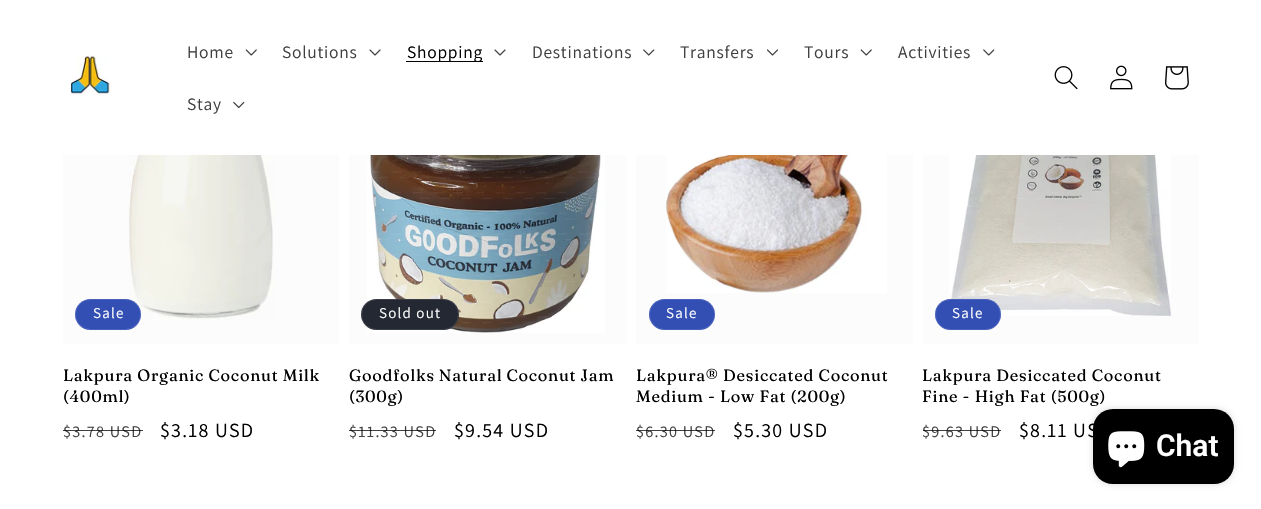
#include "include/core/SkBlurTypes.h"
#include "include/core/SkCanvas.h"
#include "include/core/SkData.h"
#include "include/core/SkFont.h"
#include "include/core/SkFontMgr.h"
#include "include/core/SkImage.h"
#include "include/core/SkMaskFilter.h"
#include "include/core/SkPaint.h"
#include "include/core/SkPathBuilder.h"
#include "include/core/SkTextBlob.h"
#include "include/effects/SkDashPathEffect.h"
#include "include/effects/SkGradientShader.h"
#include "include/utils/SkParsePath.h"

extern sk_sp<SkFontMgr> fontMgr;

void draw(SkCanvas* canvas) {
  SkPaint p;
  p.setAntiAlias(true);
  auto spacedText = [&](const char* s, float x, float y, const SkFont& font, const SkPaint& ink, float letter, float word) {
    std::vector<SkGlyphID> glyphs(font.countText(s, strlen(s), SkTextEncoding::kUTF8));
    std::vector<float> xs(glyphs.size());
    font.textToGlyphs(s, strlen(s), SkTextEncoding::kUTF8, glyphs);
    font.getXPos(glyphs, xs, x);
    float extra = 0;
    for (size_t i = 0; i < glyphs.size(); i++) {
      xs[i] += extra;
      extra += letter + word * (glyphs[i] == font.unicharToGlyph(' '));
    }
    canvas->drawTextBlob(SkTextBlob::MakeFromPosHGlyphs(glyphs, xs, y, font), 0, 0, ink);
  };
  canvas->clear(SK_ColorWHITE);
  canvas->drawImageRect(SkImages::DeferredFromEncodedData(SkData::MakeFromFileName("images/1.png")), SkRect::MakeLTRB(70, 54, 112, 96), SkSamplingOptions());
  canvas->drawImageRect(SkImages::DeferredFromEncodedData(SkData::MakeFromFileName("images/2.png")), SkRect::MakeLTRB(245, 49, 257, 56), SkSamplingOptions());
  canvas->drawImageRect(SkImages::DeferredFromEncodedData(SkData::MakeFromFileName("images/3.png")), SkRect::MakeLTRB(369, 49, 381, 56), SkSamplingOptions());
  p.setColor(SK_ColorBLACK);
  canvas->drawRect(SkRect::MakeLTRB(406, 61, 483, 62), p);
  canvas->drawImageRect(SkImages::DeferredFromEncodedData(SkData::MakeFromFileName("images/3.png")), SkRect::MakeLTRB(494, 49, 506, 56), SkSamplingOptions());
  canvas->drawImageRect(SkImages::DeferredFromEncodedData(SkData::MakeFromFileName("images/4.png")), SkRect::MakeLTRB(643, 49, 655, 56), SkSamplingOptions());
  canvas->drawImageRect(SkImages::DeferredFromEncodedData(SkData::MakeFromFileName("images/5.png")), SkRect::MakeLTRB(767, 49, 778, 56), SkSamplingOptions());
  canvas->drawImageRect(SkImages::DeferredFromEncodedData(SkData::MakeFromFileName("images/2.png")), SkRect::MakeLTRB(860, 49, 872, 56), SkSamplingOptions());
  canvas->drawImageRect(SkImages::DeferredFromEncodedData(SkData::MakeFromFileName("images/4.png")), SkRect::MakeLTRB(983, 49, 995, 56), SkSamplingOptions());
  canvas->drawImageRect(SkImages::DeferredFromEncodedData(SkData::MakeFromFileName("images/6.png")), SkRect::MakeLTRB(233, 101, 245, 109), SkSamplingOptions());
  canvas->drawImageRect(SkImages::DeferredFromEncodedData(SkData::MakeFromFileName("images/7.png")), SkRect::MakeLTRB(1054, 66, 1078, 90), SkSamplingOptions());
  canvas->drawImageRect(SkImages::DeferredFromEncodedData(SkData::MakeFromFileName("images/8.png")), SkRect::MakeLTRB(1110, 65, 1133, 90), SkSamplingOptions());
  canvas->drawImageRect(SkImages::DeferredFromEncodedData(SkData::MakeFromFileName("images/9.png")), SkRect::MakeLTRB(1165, 66, 1189, 90), SkSamplingOptions());
  p.setColor(SkColorSetRGB(252, 252, 252));
  canvas->drawRect(SkRect::MakeLTRB(63, 155, 339, 344), p);
  canvas->drawImageRect(SkImages::DeferredFromEncodedData(SkData::MakeFromFileName("images/10.png")), SkRect::MakeLTRB(129, 155, 274, 320), SkSamplingOptions());
  p.setColor(SkColorSetRGB(51, 79, 180));
  canvas->drawRoundRect(SkRect::MakeLTRB(75, 299, 141, 330), 15.5f, 15.5f, p);
  p.setStyle(SkPaint::kStroke_Style);
  p.setStrokeWidth(1);
  p.setColor(SkColorSetARGB(26, 255, 255, 255));
  canvas->drawRoundRect(SkRect::MakeLTRB(75.5f, 299.5f, 140.5f, 329.5f), 15, 15, p);
  p.setStyle(SkPaint::kFill_Style);
  p.setColor(SkColorSetRGB(252, 252, 252));
  canvas->drawRect(SkRect::MakeLTRB(349, 155, 626, 344), p);
  canvas->drawImageRect(SkImages::DeferredFromEncodedData(SkData::MakeFromFileName("images/11.png")), SkRect::MakeLTRB(367, 155, 605, 333), SkSamplingOptions());
  p.setColor(SkColorSetRGB(36, 40, 51));
  canvas->drawRoundRect(SkRect::MakeLTRB(361, 299, 459, 330), 15.5f, 15.5f, p);
  p.setStyle(SkPaint::kStroke_Style);
  p.setColor(SkColorSetARGB(26, 255, 255, 255));
  canvas->drawRoundRect(SkRect::MakeLTRB(361.5f, 299.5f, 458.5f, 329.5f), 15, 15, p);
  p.setStyle(SkPaint::kFill_Style);
  p.setColor(SkColorSetRGB(252, 252, 252));
  canvas->drawRect(SkRect::MakeLTRB(636, 155, 913, 344), p);
  canvas->drawImageRect(SkImages::DeferredFromEncodedData(SkData::MakeFromFileName("images/12.png")), SkRect::MakeLTRB(666, 155, 887, 293), SkSamplingOptions());
  p.setColor(SkColorSetRGB(51, 79, 180));
  canvas->drawRoundRect(SkRect::MakeLTRB(649, 299, 715, 330), 15.5f, 15.5f, p);
  p.setStyle(SkPaint::kStroke_Style);
  p.setColor(SkColorSetARGB(26, 255, 255, 255));
  canvas->drawRoundRect(SkRect::MakeLTRB(649.5f, 299.5f, 714.5f, 329.5f), 15, 15, p);
  p.setStyle(SkPaint::kFill_Style);
  p.setColor(SkColorSetRGB(252, 252, 252));
  canvas->drawRect(SkRect::MakeLTRB(923, 155, 1199, 344), p);
  canvas->drawImageRect(SkImages::DeferredFromEncodedData(SkData::MakeFromFileName("images/13.png")), SkRect::MakeLTRB(949, 155, 1171, 316), SkSamplingOptions());
  p.setColor(SkColorSetRGB(51, 79, 180));
  canvas->drawRoundRect(SkRect::MakeLTRB(935, 299, 1001, 330), 15.5f, 15.5f, p);
  p.setStyle(SkPaint::kStroke_Style);
  p.setColor(SkColorSetARGB(26, 255, 255, 255));
  canvas->drawRoundRect(SkRect::MakeLTRB(935.5f, 299.5f, 1000.5f, 329.5f), 15, 15, p);
  p.setStyle(SkPaint::kFill_Style);
  p.setColor(SkColorSetARGB(38, 0, 0, 0));
  p.setMaskFilter(SkMaskFilter::MakeBlur(kNormal_SkBlurStyle, 3));
  canvas->drawRoundRect(SkRect::MakeLTRB(1093, 409, 1234, 484), 20, 20, p);
  p.setMaskFilter(nullptr);
  p.setColor(SK_ColorBLACK);
  canvas->drawRoundRect(SkRect::MakeLTRB(1093, 409, 1234, 484), 20, 20, p);
  canvas->drawImageRect(SkImages::DeferredFromEncodedData(SkData::MakeFromFileName("images/14.png")), SkRect::MakeLTRB(1108, 431, 1145, 468), SkSamplingOptions());
  SkFont font1(fontMgr->matchFamilyStyle("Assistant", SkFontStyle::Normal()), 17.5f);
  font1.setSubpixel(true);
  p.setColor(SkColorSetRGB(64, 64, 64));
  spacedText("Home", 187, 58, font1, p, 0.75f, 0);
  spacedText("Solutions", 282, 58, font1, p, 0.75f, 0);
  p.setColor(SK_ColorBLACK);
  spacedText("Shopping", 407, 58, font1, p, 0.75f, 0);
  p.setColor(SkColorSetRGB(64, 64, 64));
  spacedText("Destinations", 532, 58, font1, p, 0.75f, 0);
  spacedText("Transfers", 680, 58, font1, p, 0.75f, 0);
  spacedText("Tours", 804, 58, font1, p, 0.75f, 0);
  spacedText("Activities", 898, 58, font1, p, 0.75f, 0);
  spacedText("Stay", 187, 110, font1, p, 0.75f, 0);
  SkFont font2(fontMgr->matchFamilyStyle("Assistant", SkFontStyle::Normal()), 15);
  font2.setSubpixel(true);
  p.setColor(SK_ColorWHITE);
  spacedText("Sale", 93, 318, font2, p, 1.25f, 0);
  SkFont font3(fontMgr->matchFamilyStyle("Fraunces", SkFontStyle::Normal()), 16.25f);
  font3.setSubpixel(true);
  p.setColor(SK_ColorBLACK);
  spacedText("Lakpura Organic Coconut Milk", 63, 381, font3, p, 0.75f, 0);
  spacedText("(400ml)", 63, 402, font3, p, 0.75f, 0);
  SkFont font4(fontMgr->matchFamilyStyle("Assistant", SkFontStyle::Normal()), 16.25f);
  font4.setSubpixel(true);
  p.setColor(SkColorSetRGB(64, 64, 64));
  spacedText("$3.78 USD", 63, 437, font4, p, 1.25f, 0);
  p.setColor(SkColorSetARGB(191, 0, 0, 0));
  canvas->drawRect(SkRect::MakeLTRB(63, 430, 143, 431), p);
  SkFont font5(fontMgr->matchFamilyStyle("Assistant", SkFontStyle::Normal()), 20);
  font5.setSubpixel(true);
  p.setColor(SK_ColorBLACK);
  spacedText("$3.18 USD", 160, 437, font5, p, 1.25f, 0);
  p.setColor(SK_ColorWHITE);
  spacedText("Sold out", 379, 318, font2, p, 1.25f, 0);
  p.setColor(SK_ColorBLACK);
  spacedText("Goodfolks Natural Coconut Jam", 349, 381, font3, p, 0.75f, -0.5f);
  spacedText("(300g)", 349, 402, font3, p, 0.75f, 0);
  p.setColor(SkColorSetRGB(64, 64, 64));
  spacedText("$11.33 USD", 349, 437, font4, p, 1.25f, 0);
  p.setColor(SkColorSetARGB(191, 0, 0, 0));
  canvas->drawRect(SkRect::MakeLTRB(349, 430, 436, 431), p);
  p.setColor(SK_ColorBLACK);
  spacedText("$9.54 USD", 454, 437, font5, p, 1.25f, 0);
  p.setColor(SK_ColorWHITE);
  spacedText("Sale", 666, 318, font2, p, 1.25f, 0);
  p.setColor(SK_ColorBLACK);
  spacedText("Lakpura® Desiccated Coconut", 636, 381, font3, p, 0.75f, 0);
  spacedText("Medium - Low Fat (200g)", 636, 402, font3, p, 0.75f, 0);
  p.setColor(SkColorSetRGB(64, 64, 64));
  spacedText("$6.30 USD", 636, 437, font4, p, 1.25f, 0);
  p.setColor(SkColorSetARGB(191, 0, 0, 0));
  canvas->drawRect(SkRect::MakeLTRB(636, 430, 715, 431), p);
  p.setColor(SK_ColorBLACK);
  spacedText("$5.30 USD", 733, 437, font5, p, 1.25f, 0);
  p.setColor(SK_ColorWHITE);
  spacedText("Sale", 952, 318, font2, p, 1.25f, 0);
  p.setColor(SK_ColorBLACK);
  spacedText("Lakpura Desiccated Coconut", 922, 381, font3, p, 0.75f, 0);
  spacedText("Fine - High Fat (500g)", 922, 402, font3, p, 0.75f, 0);
  p.setColor(SkColorSetRGB(64, 64, 64));
  spacedText("$9.63 USD", 922, 437, font4, p, 1.25f, 0);
  p.setColor(SkColorSetARGB(191, 0, 0, 0));
  canvas->drawRect(SkRect::MakeLTRB(923, 430, 1001, 431), p);
  p.setColor(SK_ColorBLACK);
  spacedText("$8.11 US", 1019, 437, font5, p, 1.25f, 0);
  SkFont font6(fontMgr->matchFamilyStyle("Roboto", SkFontStyle(600, SkFontStyle::kNormal_Width, SkFontStyle::kUpright_Slant)), 30);
  font6.setSubpixel(true);
  p.setColor(SK_ColorWHITE);
  canvas->drawString("Chat", 1156, 456, font6, p);
}
